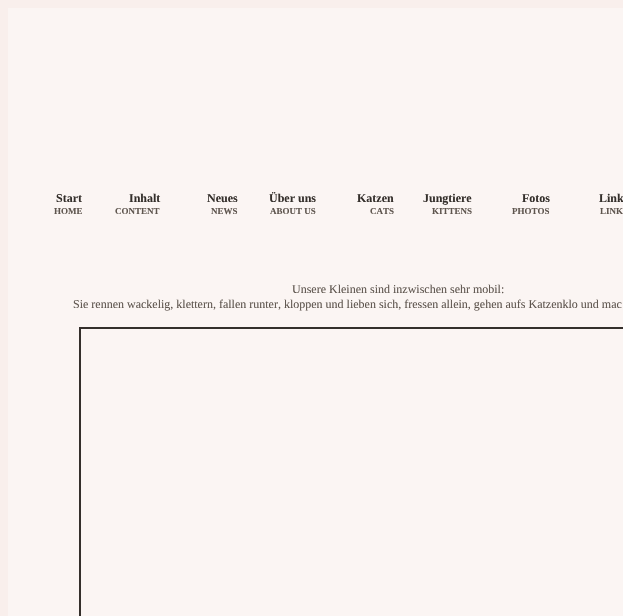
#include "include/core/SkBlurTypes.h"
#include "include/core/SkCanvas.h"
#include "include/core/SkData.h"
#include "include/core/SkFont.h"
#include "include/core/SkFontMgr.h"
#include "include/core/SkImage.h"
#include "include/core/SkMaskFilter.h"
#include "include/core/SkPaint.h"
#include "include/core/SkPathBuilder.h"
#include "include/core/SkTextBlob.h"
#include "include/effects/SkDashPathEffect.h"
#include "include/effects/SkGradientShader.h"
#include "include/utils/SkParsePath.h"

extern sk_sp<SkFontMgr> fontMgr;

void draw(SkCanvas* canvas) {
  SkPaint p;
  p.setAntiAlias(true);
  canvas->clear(SkColorSetRGB(249, 239, 236));
  p.setColor(SkColorSetRGB(251, 245, 243));
  canvas->drawRect(SkRect::MakeLTRB(8, 8, 623, 616), p);
  p.setStyle(SkPaint::kStroke_Style);
  p.setStrokeWidth(2);
  p.setColor(SkColorSetRGB(52, 47, 43));
  canvas->drawRect(SkRect::MakeLTRB(80, 328, 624, 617), p);
  SkFont font1(fontMgr->matchFamilyStyle("Liberation Serif", SkFontStyle::Bold()), 12);
  font1.setSubpixel(true);
  p.setStyle(SkPaint::kFill_Style);
  canvas->drawString("Start", 56, 202, font1, p);
  SkFont font2(fontMgr->matchFamilyStyle("Liberation Serif", SkFontStyle::Bold()), 9);
  font2.setSubpixel(true);
  p.setColor(SkColorSetRGB(94, 85, 78));
  canvas->drawString("HOME", 54, 214, font2, p);
  p.setColor(SkColorSetRGB(52, 47, 43));
  canvas->drawString("Inhalt", 129, 202, font1, p);
  p.setColor(SkColorSetRGB(94, 85, 78));
  canvas->drawString("CONTENT", 115, 214, font2, p);
  p.setColor(SkColorSetRGB(52, 47, 43));
  canvas->drawString("Neues", 207, 202, font1, p);
  p.setColor(SkColorSetRGB(94, 85, 78));
  canvas->drawString("NEWS", 211, 214, font2, p);
  p.setColor(SkColorSetRGB(52, 47, 43));
  canvas->drawString("Über uns", 269, 202, font1, p);
  p.setColor(SkColorSetRGB(94, 85, 78));
  canvas->drawString("ABOUT US", 270, 214, font2, p);
  p.setColor(SkColorSetRGB(52, 47, 43));
  canvas->drawString("Katzen", 357, 202, font1, p);
  p.setColor(SkColorSetRGB(94, 85, 78));
  canvas->drawString("CATS", 370, 214, font2, p);
  p.setColor(SkColorSetRGB(52, 47, 43));
  canvas->drawString("Jungtiere", 423, 202, font1, p);
  p.setColor(SkColorSetRGB(94, 85, 78));
  canvas->drawString("KITTENS", 432, 214, font2, p);
  p.setColor(SkColorSetRGB(52, 47, 43));
  canvas->drawString("Fotos", 522, 202, font1, p);
  p.setColor(SkColorSetRGB(94, 85, 78));
  canvas->drawString("PHOTOS", 512, 214, font2, p);
  p.setColor(SkColorSetRGB(52, 47, 43));
  canvas->drawString("Link", 599, 202, font1, p);
  p.setColor(SkColorSetRGB(94, 85, 78));
  canvas->drawString("LINK", 600, 214, font2, p);
  SkFont font3(fontMgr->matchFamilyStyle("Liberation Serif", SkFontStyle::Normal()), 12);
  font3.setSubpixel(true);
  canvas->drawString("Unsere Kleinen sind inzwischen sehr mobil:", 292, 293, font3, p);
  canvas->drawString("Sie rennen wackelig, klettern, fallen runter, kloppen und lieben sich, fressen allein, gehen aufs Katzenklo und mac", 73, 308, font3, p);
}
